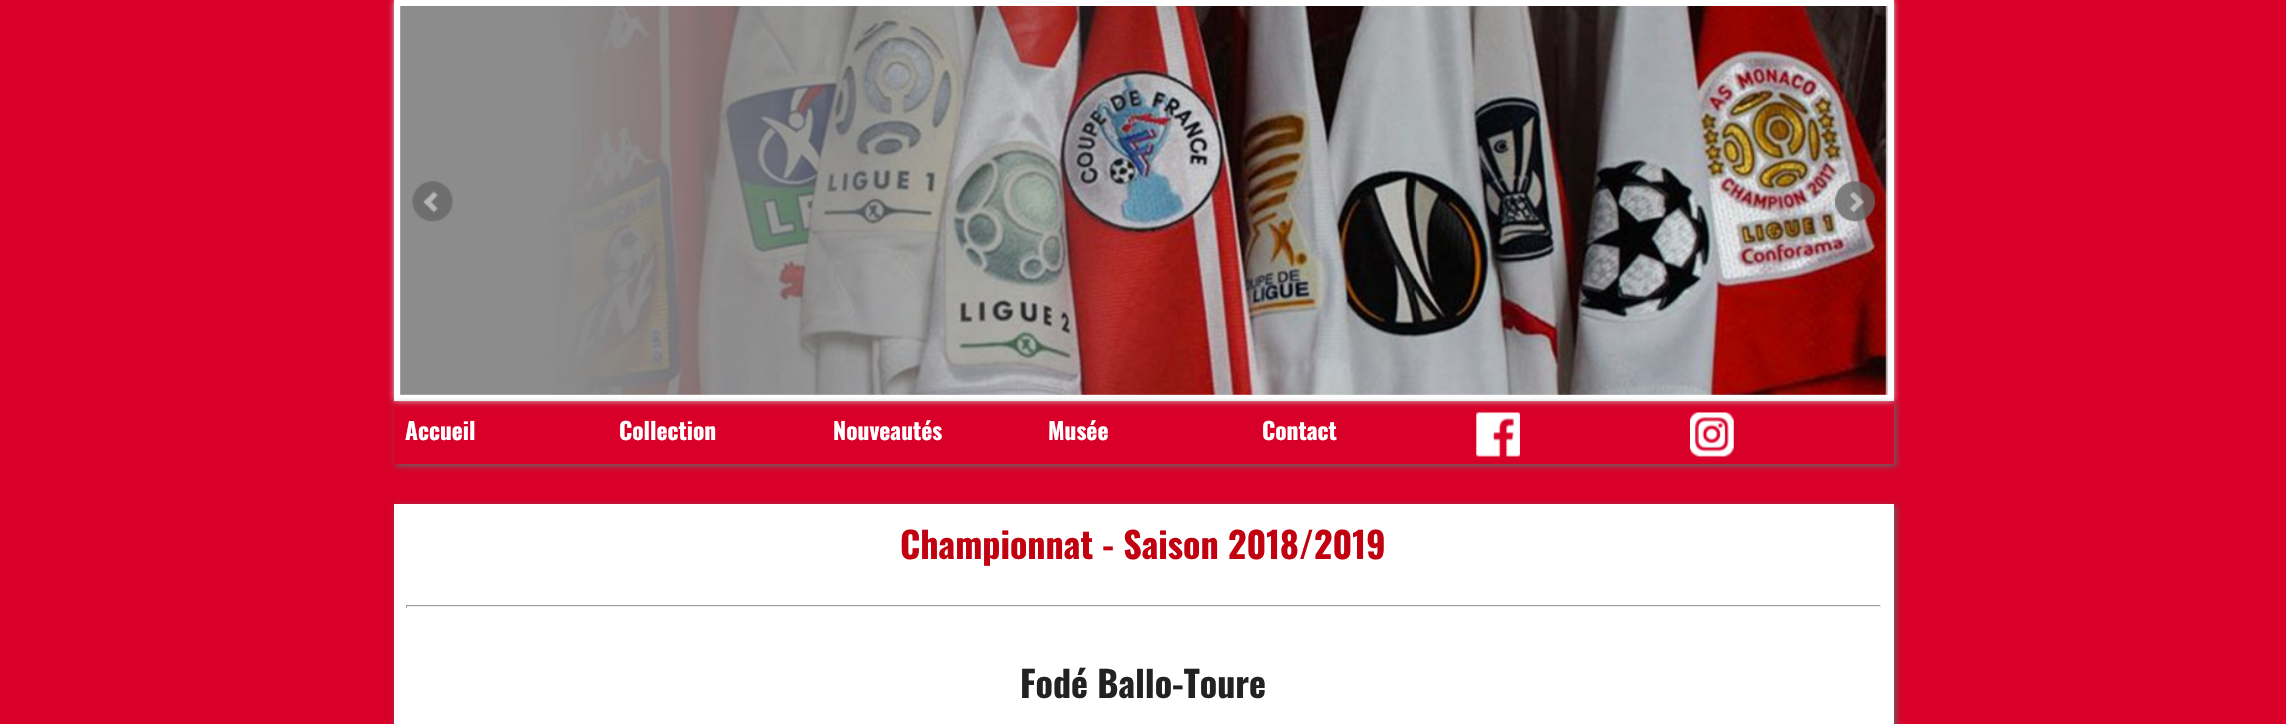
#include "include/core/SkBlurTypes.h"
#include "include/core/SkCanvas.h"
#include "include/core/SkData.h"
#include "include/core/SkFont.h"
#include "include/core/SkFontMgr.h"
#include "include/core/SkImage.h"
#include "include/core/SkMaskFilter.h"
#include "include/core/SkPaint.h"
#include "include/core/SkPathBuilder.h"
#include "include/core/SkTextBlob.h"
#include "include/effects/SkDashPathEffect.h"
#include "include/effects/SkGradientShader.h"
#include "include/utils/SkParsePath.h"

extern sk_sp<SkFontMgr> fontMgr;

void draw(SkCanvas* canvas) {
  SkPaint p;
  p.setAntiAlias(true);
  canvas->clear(SkColorSetRGB(216, 0, 41));
  p.setColor(SkColorSetRGB(204, 204, 204));
  p.setMaskFilter(SkMaskFilter::MakeBlur(kNormal_SkBlurStyle, 3));
  canvas->drawRect(SkRect::MakeLTRB(394, 0, 1894, 401), p);
  p.setMaskFilter(nullptr);
  p.setColor(SK_ColorWHITE);
  canvas->drawRect(SkRect::MakeLTRB(394, 0, 1894, 401), p);
  canvas->drawImageRect(SkImages::DeferredFromEncodedData(SkData::MakeFromFileName("images/1.png")), SkRect::MakeLTRB(400, 6, 1887, 395), SkSamplingOptions());
  canvas->drawImageRect(SkImages::DeferredFromEncodedData(SkData::MakeFromFileName("images/2.png")), SkRect::MakeLTRB(1887, 6, 1888, 395), SkSamplingOptions());
  canvas->drawImageRect(SkImages::DeferredFromEncodedData(SkData::MakeFromFileName("images/3.png")), SkRect::MakeLTRB(412, 181, 453, 222), SkSamplingOptions());
  canvas->drawImageRect(SkImages::DeferredFromEncodedData(SkData::MakeFromFileName("images/4.png")), SkRect::MakeLTRB(1835, 181, 1875, 222), SkSamplingOptions());
  canvas->save();
  canvas->clipPath(SkPathBuilder(SkPathFillType::kEvenOdd).moveTo(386, 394).lineTo(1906, 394).lineTo(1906, 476).lineTo(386, 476).close().moveTo(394, 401).lineTo(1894, 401).lineTo(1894, 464).lineTo(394, 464).close().detach(), true);
  p.setColor(SkColorSetRGB(101, 101, 101));
  p.setMaskFilter(SkMaskFilter::MakeBlur(kNormal_SkBlurStyle, 3));
  canvas->drawRect(SkRect::MakeLTRB(396, 404, 1896, 466), p);
  p.setMaskFilter(nullptr);
  canvas->restore();
  canvas->drawImageRect(SkImages::DeferredFromEncodedData(SkData::MakeFromFileName("images/5.png")), SkRect::MakeLTRB(1476, 412, 1520, 457), SkSamplingOptions());
  canvas->drawImageRect(SkImages::DeferredFromEncodedData(SkData::MakeFromFileName("images/6.png")), SkRect::MakeLTRB(1690, 412, 1734, 457), SkSamplingOptions());
  p.setMaskFilter(SkMaskFilter::MakeBlur(kNormal_SkBlurStyle, 3));
  canvas->drawRect(SkRect::MakeLTRB(396, 506, 1896, 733), p);
  p.setMaskFilter(nullptr);
  p.setColor(SK_ColorWHITE);
  canvas->drawRect(SkRect::MakeLTRB(394, 504, 1894, 724), p);
  p.setColor(SkColorSetRGB(159, 159, 159));
  canvas->drawRect(SkRect::MakeLTRB(406, 605, 1881, 606), p);
  p.setColor(SkColorSetRGB(238, 238, 238));
  canvas->drawRect(SkRect::MakeLTRB(1880, 605, 1881, 608), p);
  canvas->drawRect(SkRect::MakeLTRB(406, 606, 1881, 607), p);
  p.setColor(SkColorSetRGB(159, 159, 159));
  canvas->drawRect(SkRect::MakeLTRB(406, 605, 407, 608), p);
  SkFont font1(fontMgr->matchFamilyStyle("Oswald", SkFontStyle::Bold()), 23.5f);
  font1.setSubpixel(true);
  p.setColor(SK_ColorWHITE);
  canvas->drawString("Accueil", 405, 440, font1, p);
  canvas->drawString("Collection", 619, 440, font1, p);
  canvas->drawString("Nouveautés", 833, 440, font1, p);
  canvas->drawString("Musée", 1048, 440, font1, p);
  canvas->drawString("Contact", 1262, 440, font1, p);
  SkFont font2(fontMgr->matchFamilyStyle("Oswald", SkFontStyle::Bold()), 36);
  font2.setSubpixel(true);
  p.setColor(SkColorSetRGB(193, 1, 16));
  canvas->drawString("Championnat - Saison 2018/2019", 900, 559, font2, p);
  p.setColor(SkColorSetRGB(34, 34, 34));
  canvas->drawString("Fodé Ballo-Toure", 1020, 698, font2, p);
}
